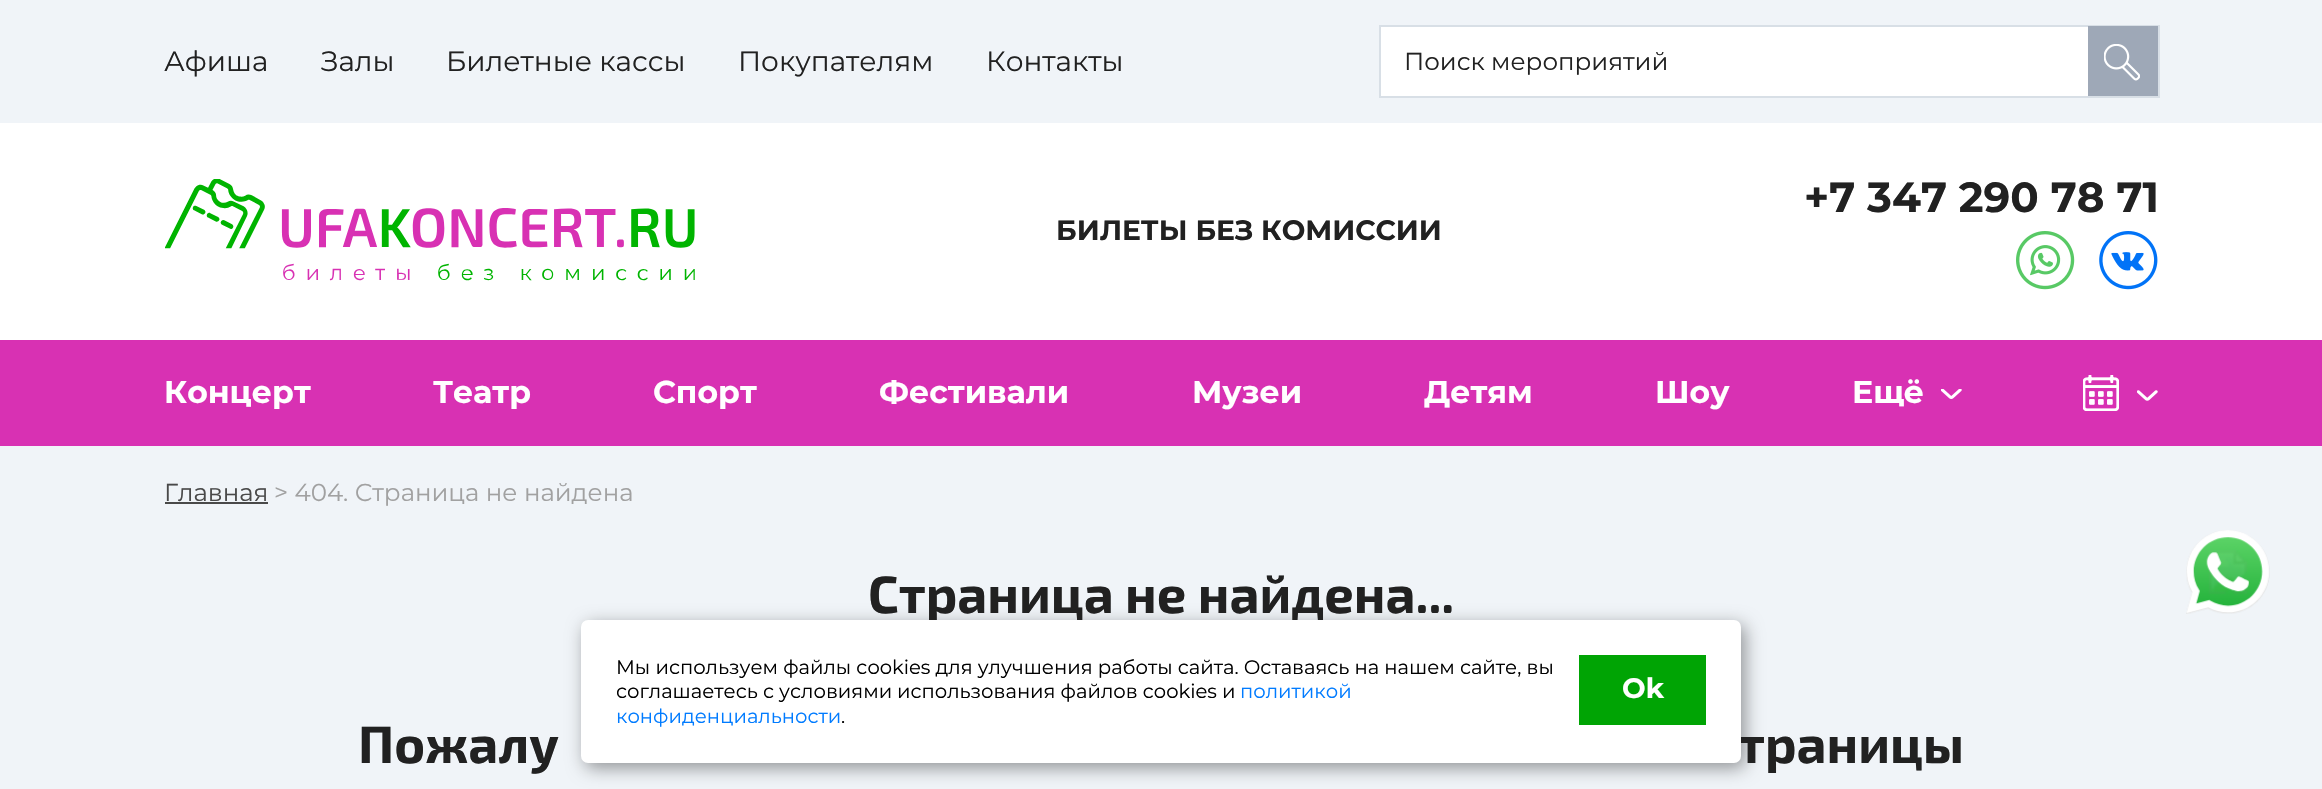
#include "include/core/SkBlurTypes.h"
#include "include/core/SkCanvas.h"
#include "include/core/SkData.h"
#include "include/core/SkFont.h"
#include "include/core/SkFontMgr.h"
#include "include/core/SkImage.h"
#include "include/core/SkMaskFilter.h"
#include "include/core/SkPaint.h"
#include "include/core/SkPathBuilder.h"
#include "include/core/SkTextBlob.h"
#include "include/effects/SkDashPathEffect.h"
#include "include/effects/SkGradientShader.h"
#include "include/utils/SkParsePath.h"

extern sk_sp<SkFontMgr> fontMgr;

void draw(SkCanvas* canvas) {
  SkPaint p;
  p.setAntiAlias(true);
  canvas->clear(SkColorSetRGB(240, 244, 248));
  p.setColor(SK_ColorWHITE);
  canvas->drawRect(SkRect::MakeLTRB(0, 123, 2322, 340), p);
  canvas->drawRect(SkRect::MakeLTRB(1381, 27, 2088, 96), p);
  p.setStyle(SkPaint::kStroke_Style);
  p.setStrokeWidth(2);
  p.setColor(SkColorSetRGB(216, 223, 230));
  canvas->drawRect(SkRect::MakeLTRB(1380, 26, 2159, 97), p);
  p.setStyle(SkPaint::kFill_Style);
  p.setColor(SkColorSetRGB(158, 168, 183));
  canvas->drawRect(SkRect::MakeLTRB(2088, 26, 2158, 96), p);
  canvas->drawImageRect(SkImages::DeferredFromEncodedData(SkData::MakeFromFileName("images/1.png")), SkRect::MakeLTRB(2104, 44, 2140, 81), SkSamplingOptions());
  canvas->drawImageRect(SkImages::DeferredFromEncodedData(SkData::MakeFromFileName("images/2.png")), SkRect::MakeLTRB(165, 179, 695, 281), SkSamplingOptions());
  canvas->drawImageRect(SkImages::DeferredFromEncodedData(SkData::MakeFromFileName("images/3.png")), SkRect::MakeLTRB(2016, 231, 2075, 290), SkSamplingOptions());
  canvas->drawImageRect(SkImages::DeferredFromEncodedData(SkData::MakeFromFileName("images/4.png")), SkRect::MakeLTRB(2099, 231, 2158, 290), SkSamplingOptions());
  p.setColor(SkColorSetRGB(216, 49, 179));
  canvas->drawRect(SkRect::MakeLTRB(0, 340, 2322, 446), p);
  canvas->drawImageRect(SkImages::DeferredFromEncodedData(SkData::MakeFromFileName("images/5.png")), SkRect::MakeLTRB(1941, 389, 1962, 399), SkSamplingOptions());
  canvas->drawImageRect(SkImages::DeferredFromEncodedData(SkData::MakeFromFileName("images/6.png")), SkRect::MakeLTRB(2083, 375, 2119, 411), SkSamplingOptions());
  canvas->drawImageRect(SkImages::DeferredFromEncodedData(SkData::MakeFromFileName("images/7.png")), SkRect::MakeLTRB(2137, 390, 2158, 401), SkSamplingOptions());
  p.setColor(SkColorSetRGB(73, 73, 73));
  canvas->drawRect(SkRect::MakeLTRB(165, 502, 268, 504), p);
  canvas->drawImageRect(SkImages::DeferredFromEncodedData(SkData::MakeFromFileName("images/8.png")), SkRect::MakeLTRB(2186, 530, 2270, 614), SkSamplingOptions());
  p.setColor(SkColorSetARGB(102, 0, 0, 0));
  p.setMaskFilter(SkMaskFilter::MakeBlur(kNormal_SkBlurStyle, 9));
  canvas->drawRoundRect(SkRect::MakeLTRB(585, 625, 1745, 768), 7, 7, p);
  p.setMaskFilter(nullptr);
  SkFont font1(fontMgr->matchFamilyStyle("Montserrat", SkFontStyle::Normal()), 28);
  font1.setSubpixel(true);
  p.setColor(SkColorSetRGB(33, 33, 33));
  canvas->drawString("Афиша", 164, 71, font1, p);
  canvas->drawString("Залы", 321, 71, font1, p);
  canvas->drawString("Билетные кассы", 446, 71, font1, p);
  canvas->drawString("Покупателям", 738, 71, font1, p);
  canvas->drawString("Контакты", 986, 71, font1, p);
  SkFont font2(fontMgr->matchFamilyStyle("Montserrat", SkFontStyle::Normal()), 24.5f);
  font2.setSubpixel(true);
  canvas->drawString("Поиск мероприятий", 1404, 70, font2, p);
  SkFont font3(fontMgr->matchFamilyStyle("Montserrat", SkFontStyle::Bold()), 42);
  font3.setSubpixel(true);
  canvas->drawString("+7 347 290 78 71", 1804, 212, font3, p);
  SkFont font4(fontMgr->matchFamilyStyle("Montserrat", SkFontStyle::Bold()), 28);
  font4.setSubpixel(true);
  canvas->drawString("БИЛЕТЫ БЕЗ КОМИССИИ", 1056, 240, font4, p);
  SkFont font5(fontMgr->matchFamilyStyle("Montserrat", SkFontStyle::Bold()), 31.5f);
  font5.setSubpixel(true);
  p.setColor(SK_ColorWHITE);
  canvas->drawString("Концерт", 164, 403, font5, p);
  canvas->drawString("Театр", 433, 403, font5, p);
  canvas->drawString("Спорт", 653, 403, font5, p);
  canvas->drawString("Фестивали", 879, 403, font5, p);
  canvas->drawString("Музеи", 1192, 403, font5, p);
  canvas->drawString("Детям", 1424, 403, font5, p);
  canvas->drawString("Шоу", 1655, 403, font5, p);
  canvas->drawString("Ещё", 1852, 403, font5, p);
  p.setColor(SkColorSetRGB(73, 73, 73));
  canvas->drawString("Главная", 164, 501, font2, p);
  p.setColor(SkColorSetRGB(161, 161, 161));
  canvas->drawString("> 404. Страница не найдена", 274, 501, font2, p);
  SkFont font6(fontMgr->matchFamilyStyle("Exo 2", SkFontStyle::Bold()), 52.5f);
  font6.setSubpixel(true);
  p.setColor(SkColorSetRGB(33, 33, 33));
  canvas->drawString("Страница не найдена...", 868, 613, font6, p);
  canvas->drawString("Пожалу", 358, 763, font6, p);
  canvas->drawString("траницы", 1738, 763, font6, p);
  p.setColor(SK_ColorWHITE);
  canvas->drawRoundRect(SkRect::MakeLTRB(581, 620, 1741, 763), 7, 7, p);
  SkFont font7(fontMgr->matchFamilyStyle("Montserrat", SkFontStyle::Normal()), 19.6f);
  font7.setSubpixel(true);
  p.setColor(SK_ColorBLACK);
  canvas->drawString("Мы используем файлы cookies для улучшения работы сайта. Оставаясь на нашем сайте, вы", 616, 674, font7, p);
  canvas->drawString("соглашаетесь с условиями", 616, 698, font7, p);
  canvas->drawString("использования файлов cookies и", 897, 698, font7, p);
  p.setColor(SkColorSetRGB(0, 123, 255));
  canvas->drawString("политикой", 1240, 698, font7, p);
  canvas->drawString("конфиденциальности", 616, 723, font7, p);
  p.setColor(SK_ColorBLACK);
  canvas->drawString(".", 841, 723, font7, p);
  p.setColor(SkColorSetRGB(0, 164, 4));
  canvas->drawRect(SkRect::MakeLTRB(1579, 655, 1706, 725), p);
  p.setColor(SK_ColorWHITE);
  canvas->drawString("Ok", 1622, 698, font4, p);
}
